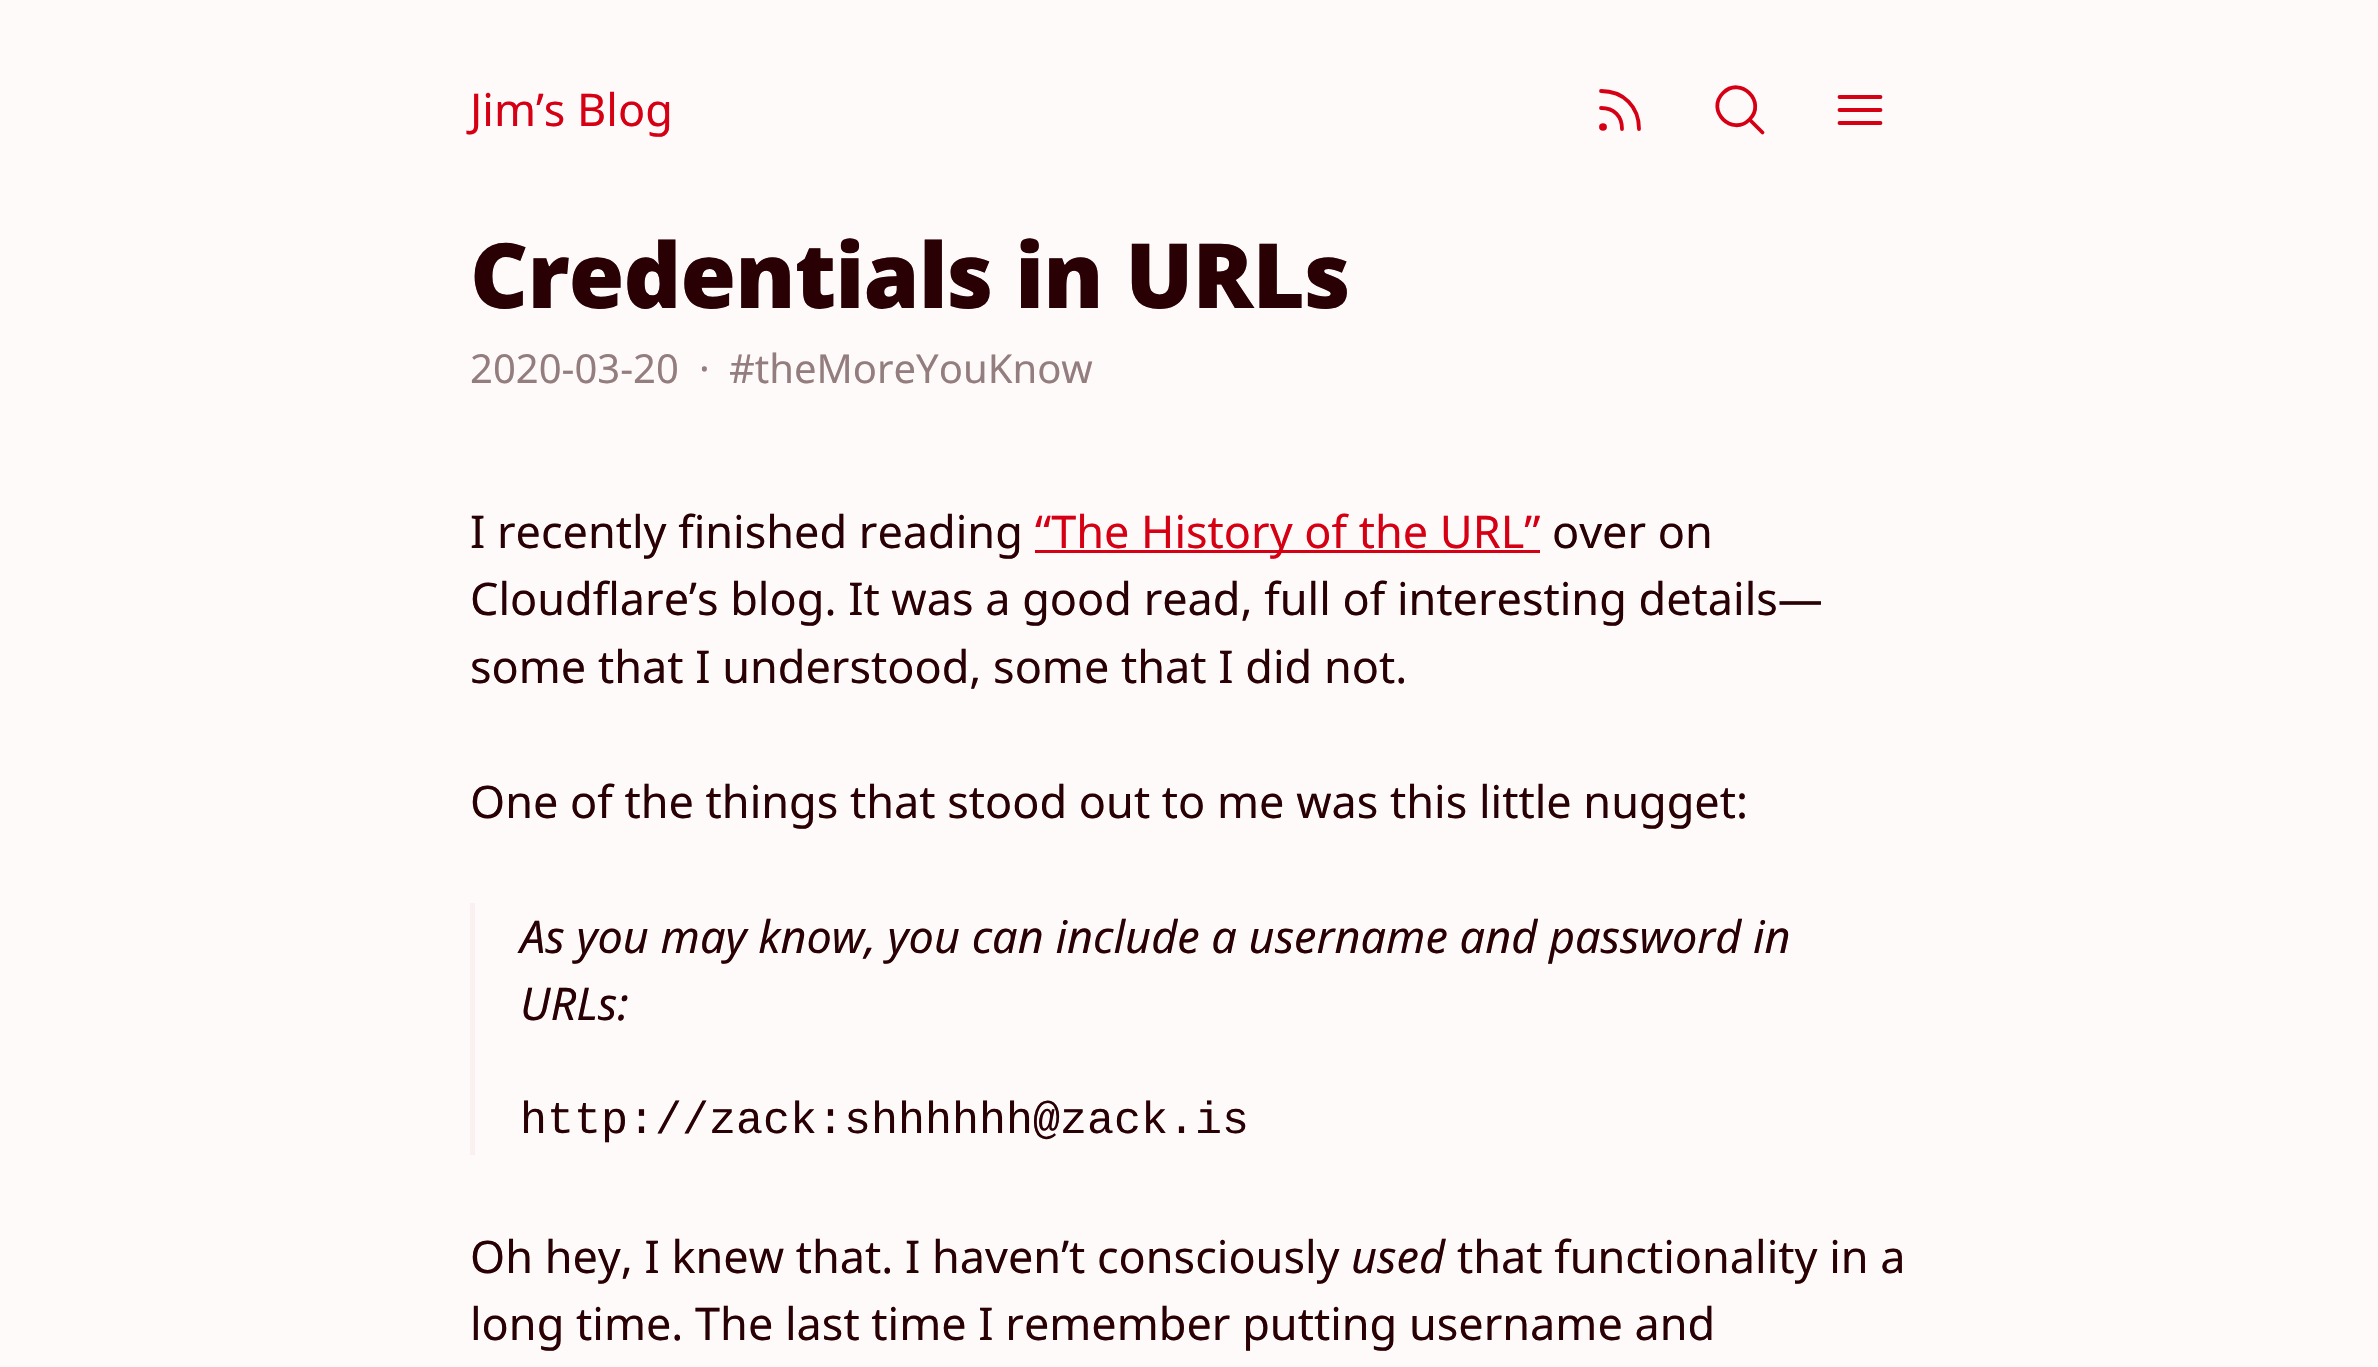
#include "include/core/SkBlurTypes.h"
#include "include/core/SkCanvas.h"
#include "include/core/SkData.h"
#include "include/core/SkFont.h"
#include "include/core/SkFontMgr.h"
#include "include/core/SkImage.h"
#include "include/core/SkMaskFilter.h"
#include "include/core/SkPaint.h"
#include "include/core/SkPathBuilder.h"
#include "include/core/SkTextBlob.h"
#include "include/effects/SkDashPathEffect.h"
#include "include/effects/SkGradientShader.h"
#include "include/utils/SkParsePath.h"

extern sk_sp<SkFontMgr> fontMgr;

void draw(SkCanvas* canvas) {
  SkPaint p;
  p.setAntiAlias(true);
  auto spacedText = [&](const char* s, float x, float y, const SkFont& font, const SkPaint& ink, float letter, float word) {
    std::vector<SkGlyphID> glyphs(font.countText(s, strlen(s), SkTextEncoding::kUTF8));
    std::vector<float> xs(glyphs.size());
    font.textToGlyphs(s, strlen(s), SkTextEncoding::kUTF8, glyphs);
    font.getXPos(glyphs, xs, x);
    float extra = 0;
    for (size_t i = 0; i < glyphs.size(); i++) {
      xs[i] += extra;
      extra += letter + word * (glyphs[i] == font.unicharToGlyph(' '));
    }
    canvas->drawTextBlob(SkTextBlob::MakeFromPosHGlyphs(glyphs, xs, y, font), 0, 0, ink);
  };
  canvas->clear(SkColorSetRGB(255, 250, 250));
  p.setStyle(SkPaint::kStroke_Style);
  p.setStrokeWidth(3.8f);
  p.setStrokeCap(SkPaint::kRound_Cap);
  p.setStrokeJoin(SkPaint::kRound_Join);
  p.setColor(SkColorSetRGB(214, 0, 21));
  canvas->drawPath(SkPathBuilder().moveTo(1622, 129).cubicTo(1622, 116, 1614, 108, 1601, 108).moveTo(1601, 91).cubicTo(1623.5f, 91, 1639, 106.5f, 1639, 129).moveTo(1605, 127).cubicTo(1605, 129.5f, 1601, 129.5f, 1601, 127).cubicTo(1601, 124.5f, 1605, 124.5f, 1605, 127).close().detach(), p);
  canvas->drawPath(SkPathBuilder().moveTo(1762.5f, 132.5f).lineTo(1749.5f, 119.5f).moveTo(1749.5f, 119.5f).cubicTo(1767, 102, 1740.5f, 75.5f, 1723, 93).cubicTo(1705.5f, 110.5f, 1732, 137, 1749.5f, 119.5f).close().detach(), p);
  canvas->drawPath(SkPathBuilder().moveTo(1839.5f, 97).lineTo(1880.5f, 97).moveTo(1839.5f, 110).lineTo(1880.5f, 110).moveTo(1839.5f, 123).lineTo(1880.5f, 123).detach(), p);
  p.setStyle(SkPaint::kFill_Style);
  canvas->drawRect(SkRect::MakeLTRB(1035, 550, 1540, 553), p);
  p.setColor(SkColorSetRGB(251, 240, 240));
  canvas->drawRect(SkRect::MakeLTRB(470, 903, 475, 1155), p);
  SkFont font1(fontMgr->matchFamilyStyle("Noto Sans", SkFontStyle::Normal()), 45);
  font1.setSubpixel(true);
  p.setColor(SkColorSetRGB(214, 0, 21));
  canvas->drawString("Jim’s Blog", 470, 126, font1, p);
  SkFont font2(fontMgr->matchFamilyStyle("Noto Sans", SkFontStyle(900, SkFontStyle::kNormal_Width, SkFontStyle::kUpright_Slant)), 90);
  font2.setSubpixel(true);
  p.setColor(SkColorSetRGB(41, 0, 4));
  spacedText("Credentials in URLs", 470, 308, font2, p, -0.9f, 0);
  SkFont font3(fontMgr->matchFamilyStyle("Noto Sans", SkFontStyle::Normal()), 40);
  font3.setSubpixel(true);
  p.setColor(SkColorSetRGB(148, 125, 127));
  canvas->drawString("2020-03-20", 470, 383, font3, p);
  canvas->drawString("·", 699, 383, font3, p);
  canvas->drawString("#theMoreYouKnow", 729, 383, font3, p);
  p.setColor(SkColorSetRGB(41, 0, 4));
  canvas->drawString("I recently finished reading", 470, 548, font1, p);
  p.setColor(SkColorSetRGB(214, 0, 21));
  canvas->drawString("“The History of the URL”", 1035, 548, font1, p);
  p.setColor(SkColorSetRGB(41, 0, 4));
  canvas->drawString("over on", 1552, 548, font1, p);
  canvas->drawString("Cloudflare’s blog. It was a good read, full of interesting details—", 470, 615, font1, p);
  canvas->drawString("some that I understood, some that I did not.", 470, 683, font1, p);
  canvas->drawString("One of the things that stood out to me was this little nugget:", 470, 818, font1, p);
  SkFont font4(fontMgr->matchFamilyStyle("Noto Sans", SkFontStyle::Italic()), 45);
  font4.setSubpixel(true);
  canvas->drawString("As you may know, you can include a username and password in", 520, 953, font4, p);
  canvas->drawString("URLs:", 520, 1020, font4, p);
  SkFont font5(fontMgr->matchFamilyStyle("Liberation Mono", SkFontStyle::Normal()), 45);
  font5.setSubpixel(true);
  canvas->drawString("http://zack:shhhhhh@zack.is", 520, 1133, font5, p);
  canvas->drawString("Oh hey, I knew that. I haven’t consciously", 470, 1273, font1, p);
  canvas->drawString("used", 1351, 1273, font4, p);
  canvas->drawString("that functionality in a", 1457, 1273, font1, p);
  canvas->drawString("long time. The last time I remember putting username and", 470, 1340, font1, p);
}
